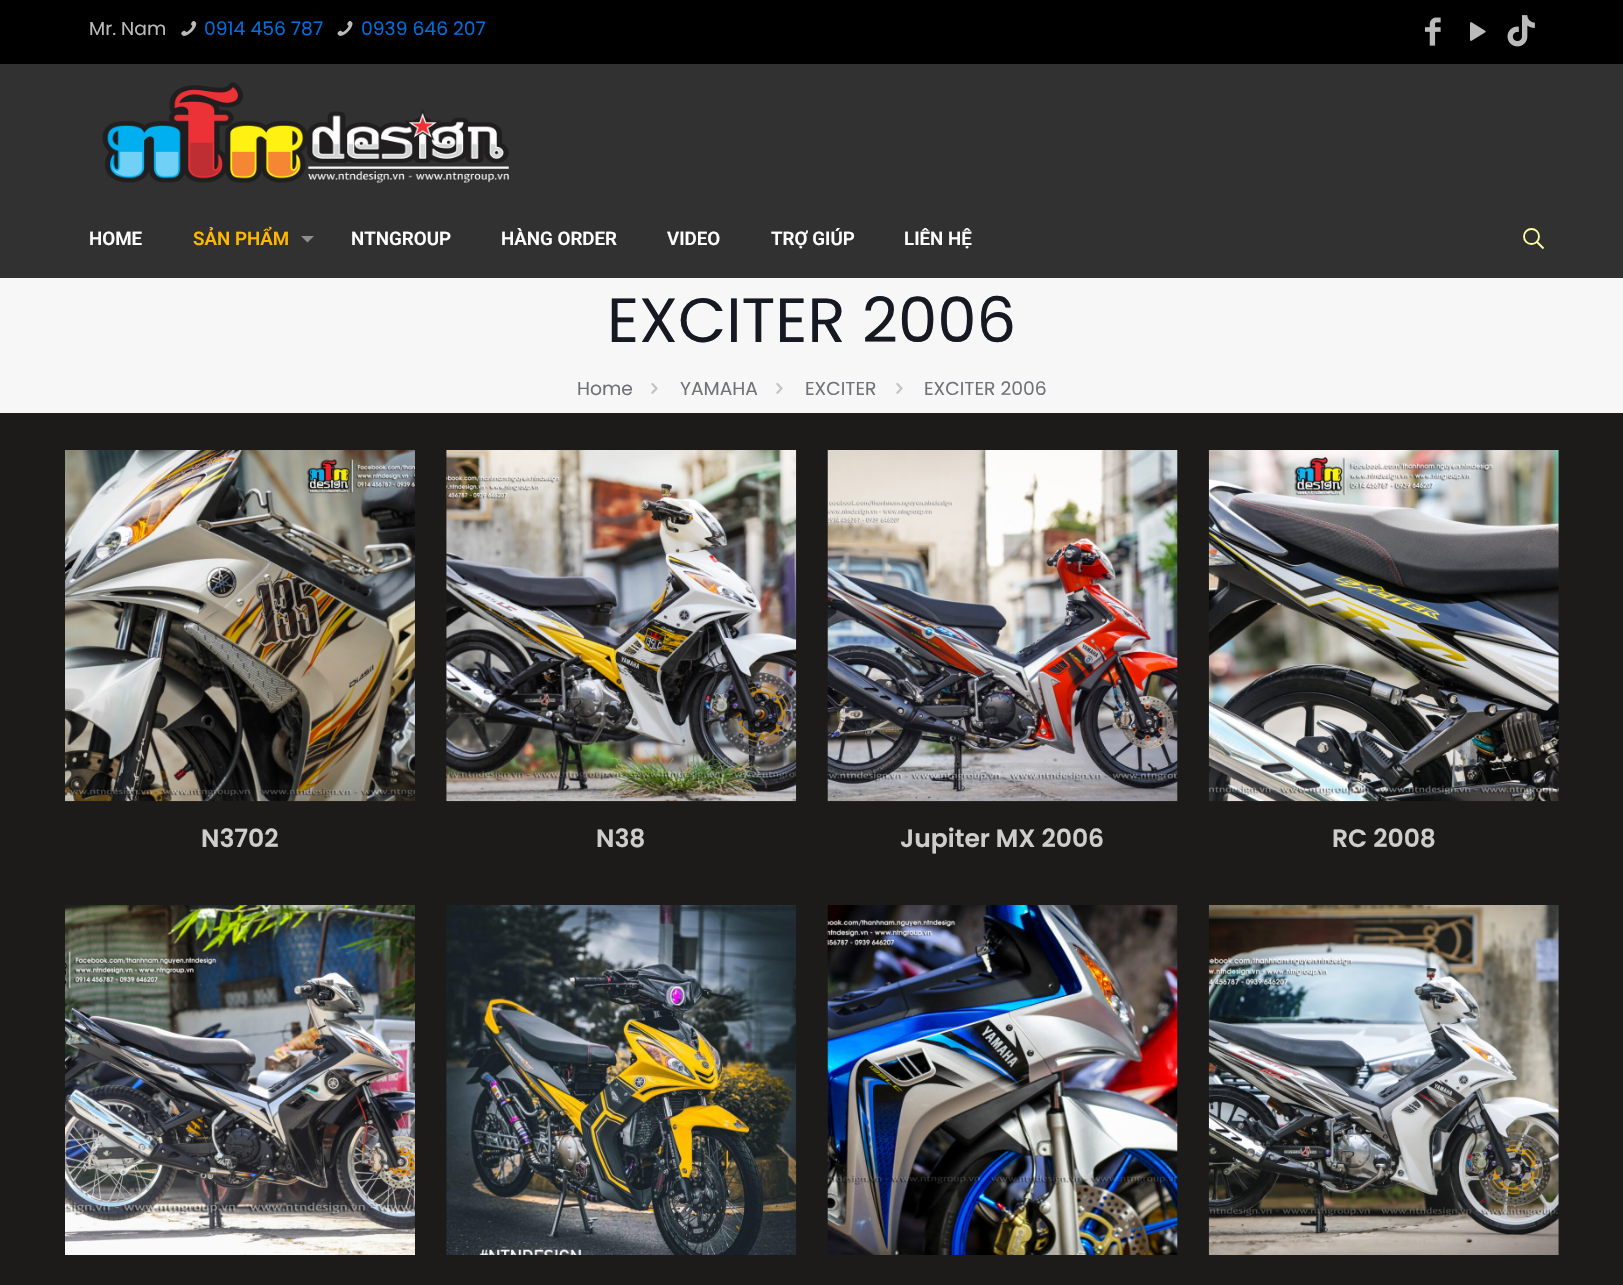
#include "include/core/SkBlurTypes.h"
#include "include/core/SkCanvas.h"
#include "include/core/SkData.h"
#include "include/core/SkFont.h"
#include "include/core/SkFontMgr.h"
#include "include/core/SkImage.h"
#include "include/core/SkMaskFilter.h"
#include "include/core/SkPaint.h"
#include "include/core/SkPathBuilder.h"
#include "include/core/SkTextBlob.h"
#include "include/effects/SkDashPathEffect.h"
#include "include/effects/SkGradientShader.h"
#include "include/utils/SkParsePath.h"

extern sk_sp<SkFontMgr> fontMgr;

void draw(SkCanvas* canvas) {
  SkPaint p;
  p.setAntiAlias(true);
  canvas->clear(SkColorSetRGB(28, 27, 25));
  p.setColor(SK_ColorBLACK);
  canvas->drawRect(SkRect::MakeLTRB(0, 0, 1623, 64), p);
  canvas->drawImageRect(SkImages::DeferredFromEncodedData(SkData::MakeFromFileName("images/1.png")), SkRect::MakeLTRB(181, 20, 197, 36), SkSamplingOptions());
  canvas->drawImageRect(SkImages::DeferredFromEncodedData(SkData::MakeFromFileName("images/2.png")), SkRect::MakeLTRB(337, 20, 353, 36), SkSamplingOptions());
  canvas->drawImageRect(SkImages::DeferredFromEncodedData(SkData::MakeFromFileName("images/3.png")), SkRect::MakeLTRB(1425, 17, 1441, 46), SkSamplingOptions());
  canvas->drawImageRect(SkImages::DeferredFromEncodedData(SkData::MakeFromFileName("images/4.png")), SkRect::MakeLTRB(1470, 22, 1486, 41), SkSamplingOptions());
  canvas->drawImageRect(SkImages::DeferredFromEncodedData(SkData::MakeFromFileName("images/5.png")), SkRect::MakeLTRB(1507, 15, 1535, 47), SkSamplingOptions());
  p.setColor(SkColorSetRGB(49, 49, 49));
  canvas->drawRect(SkRect::MakeLTRB(0, 64, 1623, 278), p);
  canvas->drawImageRect(SkImages::DeferredFromEncodedData(SkData::MakeFromFileName("images/6.png")), SkRect::MakeLTRB(102, 82, 509, 183), SkSamplingOptions());
  p.setColor(SkColorSetRGB(142, 142, 142));
  canvas->drawPath(SkPathBuilder().moveTo(301, 236).lineTo(314, 236).lineTo(307.5f, 242.5f).close().detach(), p);
  p.setStyle(SkPaint::kStroke_Style);
  p.setStrokeWidth(1.9f);
  p.setColor(SkColorSetRGB(254, 255, 160));
  canvas->drawCircle(1531.5f, 236.5f, 7.5f, p);
  canvas->drawPath(SkPathBuilder().moveTo(1537, 242).lineTo(1543.5f, 248.5f).detach(), p);
  p.setStyle(SkPaint::kFill_Style);
  p.setColor(SkColorSetRGB(247, 247, 247));
  canvas->drawRect(SkRect::MakeLTRB(0, 278, 1623, 413), p);
  canvas->drawImageRect(SkImages::DeferredFromEncodedData(SkData::MakeFromFileName("images/7.png")), SkRect::MakeLTRB(651, 383, 658, 394), SkSamplingOptions());
  canvas->drawImageRect(SkImages::DeferredFromEncodedData(SkData::MakeFromFileName("images/7.png")), SkRect::MakeLTRB(776, 383, 783, 394), SkSamplingOptions());
  canvas->drawImageRect(SkImages::DeferredFromEncodedData(SkData::MakeFromFileName("images/7.png")), SkRect::MakeLTRB(896, 383, 903, 394), SkSamplingOptions());
  canvas->drawImageRect(SkImages::DeferredFromEncodedData(SkData::MakeFromFileName("images/8.png")), SkRect::MakeLTRB(65, 450, 415, 802), SkSamplingOptions());
  canvas->drawImageRect(SkImages::DeferredFromEncodedData(SkData::MakeFromFileName("images/9.png")), SkRect::MakeLTRB(446, 450, 797, 802), SkSamplingOptions());
  canvas->drawImageRect(SkImages::DeferredFromEncodedData(SkData::MakeFromFileName("images/10.png")), SkRect::MakeLTRB(827, 450, 1178, 802), SkSamplingOptions());
  canvas->drawImageRect(SkImages::DeferredFromEncodedData(SkData::MakeFromFileName("images/11.png")), SkRect::MakeLTRB(1208, 450, 1559, 802), SkSamplingOptions());
  canvas->drawImageRect(SkImages::DeferredFromEncodedData(SkData::MakeFromFileName("images/12.png")), SkRect::MakeLTRB(65, 905, 415, 1255), SkSamplingOptions());
  canvas->drawImageRect(SkImages::DeferredFromEncodedData(SkData::MakeFromFileName("images/13.png")), SkRect::MakeLTRB(446, 905, 797, 1255), SkSamplingOptions());
  canvas->drawImageRect(SkImages::DeferredFromEncodedData(SkData::MakeFromFileName("images/14.png")), SkRect::MakeLTRB(827, 905, 1178, 1255), SkSamplingOptions());
  canvas->drawImageRect(SkImages::DeferredFromEncodedData(SkData::MakeFromFileName("images/15.png")), SkRect::MakeLTRB(1208, 905, 1559, 1255), SkSamplingOptions());
  SkFont font1(fontMgr->matchFamilyStyle("Poppins", SkFontStyle::Normal()), 18.75f);
  font1.setSubpixel(true);
  p.setColor(SkColorSetRGB(187, 187, 187));
  canvas->drawString("Mr. Nam", 89, 35, font1, p);
  p.setColor(SkColorSetRGB(0, 110, 223));
  canvas->drawString("0914 456 787", 204, 35, font1, p);
  canvas->drawString("0939 646 207", 361, 35, font1, p);
  SkFont font2(fontMgr->matchFamilyStyle("Roboto", SkFontStyle(600, SkFontStyle::kNormal_Width, SkFontStyle::kUpright_Slant)), 18.75f);
  font2.setSubpixel(true);
  p.setColor(SK_ColorWHITE);
  canvas->drawString("HOME", 89, 245, font2, p);
  p.setColor(SkColorSetRGB(255, 183, 0));
  canvas->drawString("SẢN PHẨM", 193, 245, font2, p);
  p.setColor(SK_ColorWHITE);
  canvas->drawString("NTNGROUP", 351, 245, font2, p);
  canvas->drawString("HÀNG ORDER", 501, 245, font2, p);
  canvas->drawString("VIDEO", 667, 245, font2, p);
  canvas->drawString("TRỢ GIÚP", 771, 245, font2, p);
  canvas->drawString("LIÊN HỆ", 904, 245, font2, p);
  SkFont font3(fontMgr->matchFamilyStyle("Poppins", SkFontStyle::Normal()), 62.5f);
  font3.setSubpixel(true);
  p.setColor(SkColorSetRGB(22, 25, 34));
  canvas->drawString("EXCITER 2006", 607, 342, font3, p);
  p.setColor(SkColorSetRGB(112, 114, 119));
  canvas->drawString("Home", 577, 395, font1, p);
  canvas->drawString("YAMAHA", 680, 395, font1, p);
  canvas->drawString("EXCITER", 805, 395, font1, p);
  canvas->drawString("EXCITER 2006", 924, 395, font1, p);
  SkFont font4(fontMgr->matchFamilyStyle("Poppins", SkFontStyle(600, SkFontStyle::kNormal_Width, SkFontStyle::kUpright_Slant)), 25);
  font4.setSubpixel(true);
  p.setColor(SkColorSetRGB(206, 205, 205));
  canvas->drawString("N3702", 201, 847, font4, p);
  canvas->drawString("N38", 596, 847, font4, p);
  canvas->drawString("Jupiter MX 2006", 900, 847, font4, p);
  canvas->drawString("RC 2008", 1332, 847, font4, p);
}
